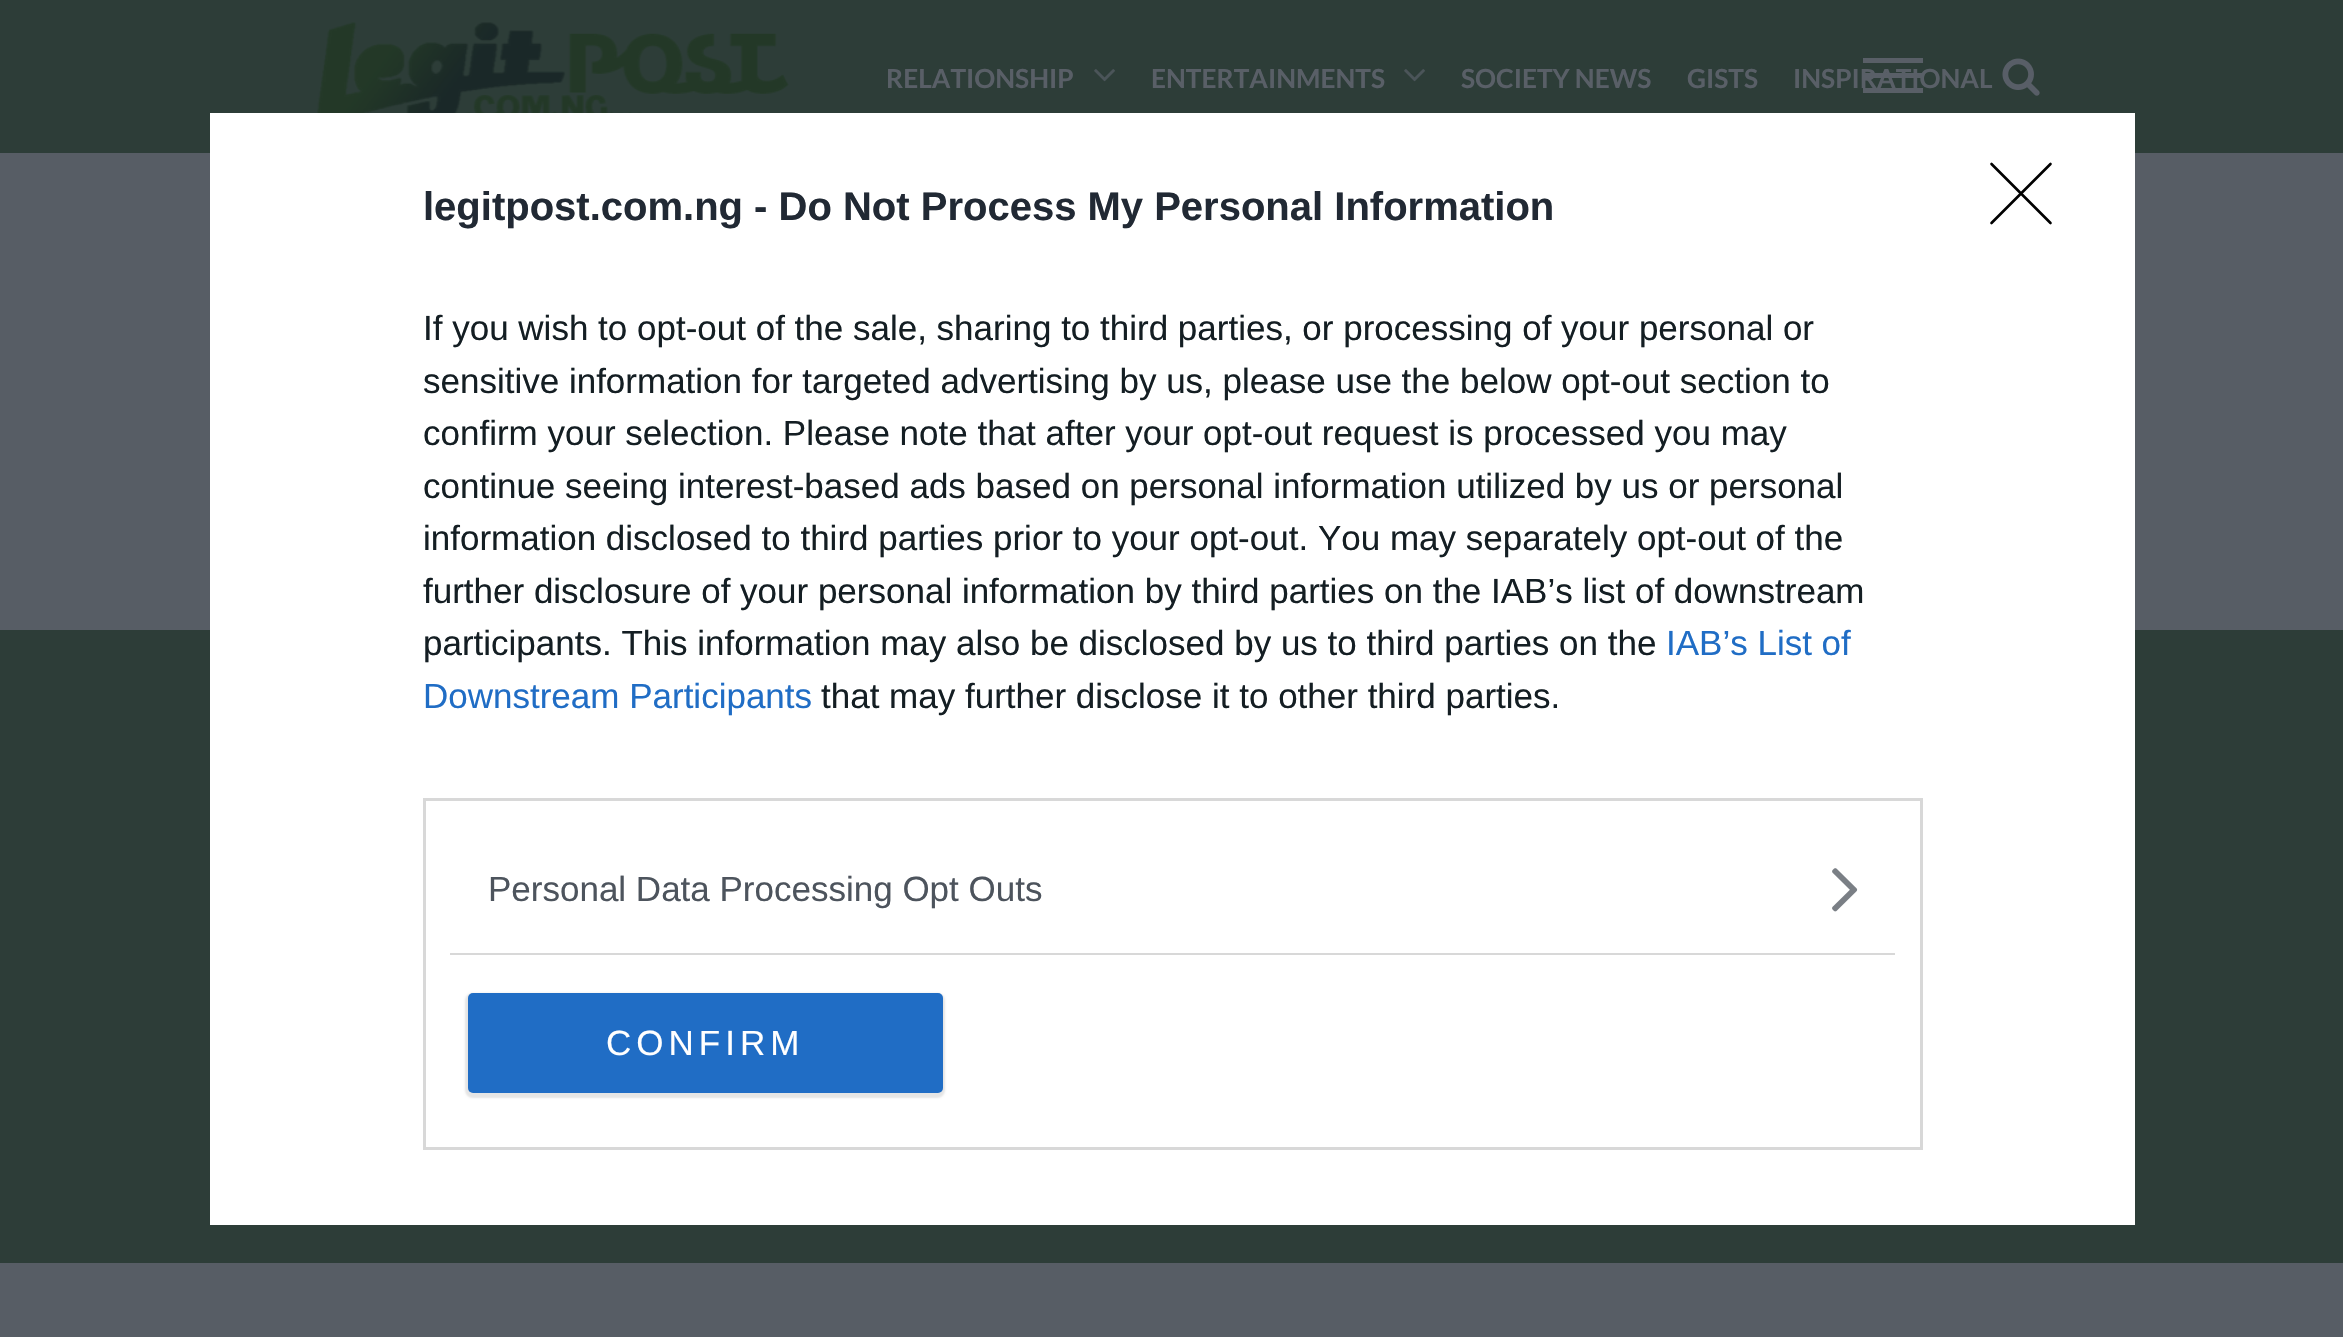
#include "include/core/SkBlurTypes.h"
#include "include/core/SkCanvas.h"
#include "include/core/SkData.h"
#include "include/core/SkFont.h"
#include "include/core/SkFontMgr.h"
#include "include/core/SkImage.h"
#include "include/core/SkMaskFilter.h"
#include "include/core/SkPaint.h"
#include "include/core/SkPathBuilder.h"
#include "include/core/SkTextBlob.h"
#include "include/effects/SkDashPathEffect.h"
#include "include/effects/SkGradientShader.h"
#include "include/utils/SkParsePath.h"

extern sk_sp<SkFontMgr> fontMgr;

void draw(SkCanvas* canvas) {
  SkPaint p;
  p.setAntiAlias(true);
  auto spacedText = [&](const char* s, float x, float y, const SkFont& font, const SkPaint& ink, float letter, float word) {
    std::vector<SkGlyphID> glyphs(font.countText(s, strlen(s), SkTextEncoding::kUTF8));
    std::vector<float> xs(glyphs.size());
    font.textToGlyphs(s, strlen(s), SkTextEncoding::kUTF8, glyphs);
    font.getXPos(glyphs, xs, x);
    float extra = 0;
    for (size_t i = 0; i < glyphs.size(); i++) {
      xs[i] += extra;
      extra += letter + word * (glyphs[i] == font.unicharToGlyph(' '));
    }
    canvas->drawTextBlob(SkTextBlob::MakeFromPosHGlyphs(glyphs, xs, y, font), 0, 0, ink);
  };
  canvas->clear(SkColorSetRGB(87, 93, 101));
  p.setColor(SkColorSetRGB(45, 61, 56));
  canvas->drawRect(SkRect::MakeLTRB(0, 0, 2343, 153), p);
  p.setColor(SkColorSetARGB(13, 32, 38, 46));
  canvas->drawRect(SkRect::MakeLTRB(1828, 69, 1831, 88), p);
  canvas->drawRect(SkRect::MakeLTRB(1955, 69, 1958, 88), p);
  p.setColor(SkColorSetRGB(89, 95, 103));
  canvas->drawRect(SkRect::MakeLTRB(1863, 73, 1923, 78), p);
  canvas->drawRect(SkRect::MakeLTRB(1863, 58, 1923, 63), p);
  canvas->drawRect(SkRect::MakeLTRB(1863, 88, 1923, 93), p);
  canvas->drawImageRect(SkImages::DeferredFromEncodedData(SkData::MakeFromFileName("images/1.png")), SkRect::MakeLTRB(2002, 58, 2040, 96), SkSamplingOptions());
  canvas->drawImageRect(SkImages::DeferredFromEncodedData(SkData::MakeFromFileName("images/2.png")), SkRect::MakeLTRB(317, 22, 789, 113), SkSamplingOptions());
  canvas->drawImageRect(SkImages::DeferredFromEncodedData(SkData::MakeFromFileName("images/3.png")), SkRect::MakeLTRB(1094, 69, 1115, 82), SkSamplingOptions());
  canvas->drawImageRect(SkImages::DeferredFromEncodedData(SkData::MakeFromFileName("images/3.png")), SkRect::MakeLTRB(1404, 69, 1425, 82), SkSamplingOptions());
  p.setColor(SkColorSetRGB(45, 61, 56));
  canvas->drawRect(SkRect::MakeLTRB(0, 630, 2343, 1263), p);
  p.setColor(SK_ColorWHITE);
  canvas->drawRect(SkRect::MakeLTRB(210, 113, 2135, 1225), p);
  p.setStyle(SkPaint::kStroke_Style);
  p.setStrokeWidth(3);
  p.setColor(SkColorSetRGB(216, 216, 216));
  canvas->drawRect(SkRect::MakeLTRB(424.5f, 799.5f, 1921.5f, 1148.5f), p);
  p.setStyle(SkPaint::kFill_Style);
  canvas->drawRect(SkRect::MakeLTRB(450, 953, 1895, 955), p);
  canvas->drawImageRect(SkImages::DeferredFromEncodedData(SkData::MakeFromFileName("images/4.png")), SkRect::MakeLTRB(1832, 868, 1858, 912), SkSamplingOptions());
  p.setColor(SkColorSetARGB(26, 0, 0, 0));
  p.setMaskFilter(SkMaskFilter::MakeBlur(kNormal_SkBlurStyle, 1));
  canvas->drawRoundRect(SkRect::MakeLTRB(465, 993, 945, 1098), 8, 8, p);
  p.setMaskFilter(nullptr);
  p.setColor(SkColorSetRGB(32, 109, 197));
  canvas->drawRoundRect(SkRect::MakeLTRB(468, 993, 943, 1093), 5, 5, p);
  p.setStyle(SkPaint::kStroke_Style);
  p.setStrokeWidth(2.6f);
  p.setStrokeCap(SkPaint::kRound_Cap);
  p.setStrokeJoin(SkPaint::kRound_Join);
  p.setColor(SK_ColorBLACK);
  canvas->drawPath(SkPathBuilder().moveTo(1991.5f, 164).lineTo(2050.5f, 223).moveTo(2050.5f, 164).lineTo(1991.5f, 223).detach(), p);
  SkFont font1(fontMgr->matchFamilyStyle("Lato", SkFontStyle::Bold()), 26.25f);
  font1.setSubpixel(true);
  p.setStyle(SkPaint::kFill_Style);
  p.setColor(SkColorSetRGB(89, 95, 103));
  canvas->drawString("RELATIONSHIP", 886, 88, font1, p);
  canvas->drawString("ENTERTAINMENTS", 1151, 88, font1, p);
  canvas->drawString("SOCIETY NEWS", 1461, 88, font1, p);
  canvas->drawString("GISTS", 1687, 88, font1, p);
  canvas->drawString("INSPIRATIONAL", 1793, 88, font1, p);
  SkFont font2(fontMgr->matchFamilyStyle("Liberation Sans", SkFontStyle::Bold()), 40);
  font2.setSubpixel(true);
  p.setColor(SkColorSetRGB(33, 41, 52));
  canvas->drawString("legitpost.com.ng - Do Not Process My Personal Information", 423, 220, font2, p);
  SkFont font3(fontMgr->matchFamilyStyle("Liberation Sans", SkFontStyle::Normal()), 35);
  font3.setSubpixel(true);
  p.setColor(SkColorSetRGB(20, 30, 35));
  canvas->drawString("If you wish to opt-out of the sale, sharing to third parties, or processing of your personal or", 423, 340, font3, p);
  canvas->drawString("sensitive information for targeted advertising by us, please use the below opt-out section to", 423, 393, font3, p);
  canvas->drawString("confirm your selection. Please note that after your opt-out request is processed you may", 423, 445, font3, p);
  canvas->drawString("continue seeing interest-based ads based on personal information utilized by us or personal", 423, 498, font3, p);
  canvas->drawString("information disclosed to third parties prior to your opt-out. You may separately opt-out of the", 423, 550, font3, p);
  canvas->drawString("further disclosure of your personal information by third parties on the IAB’s list of downstream", 423, 603, font3, p);
  canvas->drawString("participants. This information may also be disclosed by us to third parties on the", 423, 655, font3, p);
  p.setColor(SkColorSetRGB(32, 109, 197));
  canvas->drawString("IAB’s List of", 1666, 655, font3, p);
  canvas->drawString("Downstream Participants", 423, 708, font3, p);
  p.setColor(SkColorSetRGB(20, 30, 35));
  canvas->drawString("that may further disclose it to other third parties.", 821, 708, font3, p);
  p.setColor(SkColorSetRGB(77, 84, 93));
  canvas->drawString("Personal Data Processing Opt Outs", 488, 901, font3, p);
  p.setColor(SK_ColorWHITE);
  spacedText("CONFIRM", 606, 1055, font3, p, 5, 0);
}
